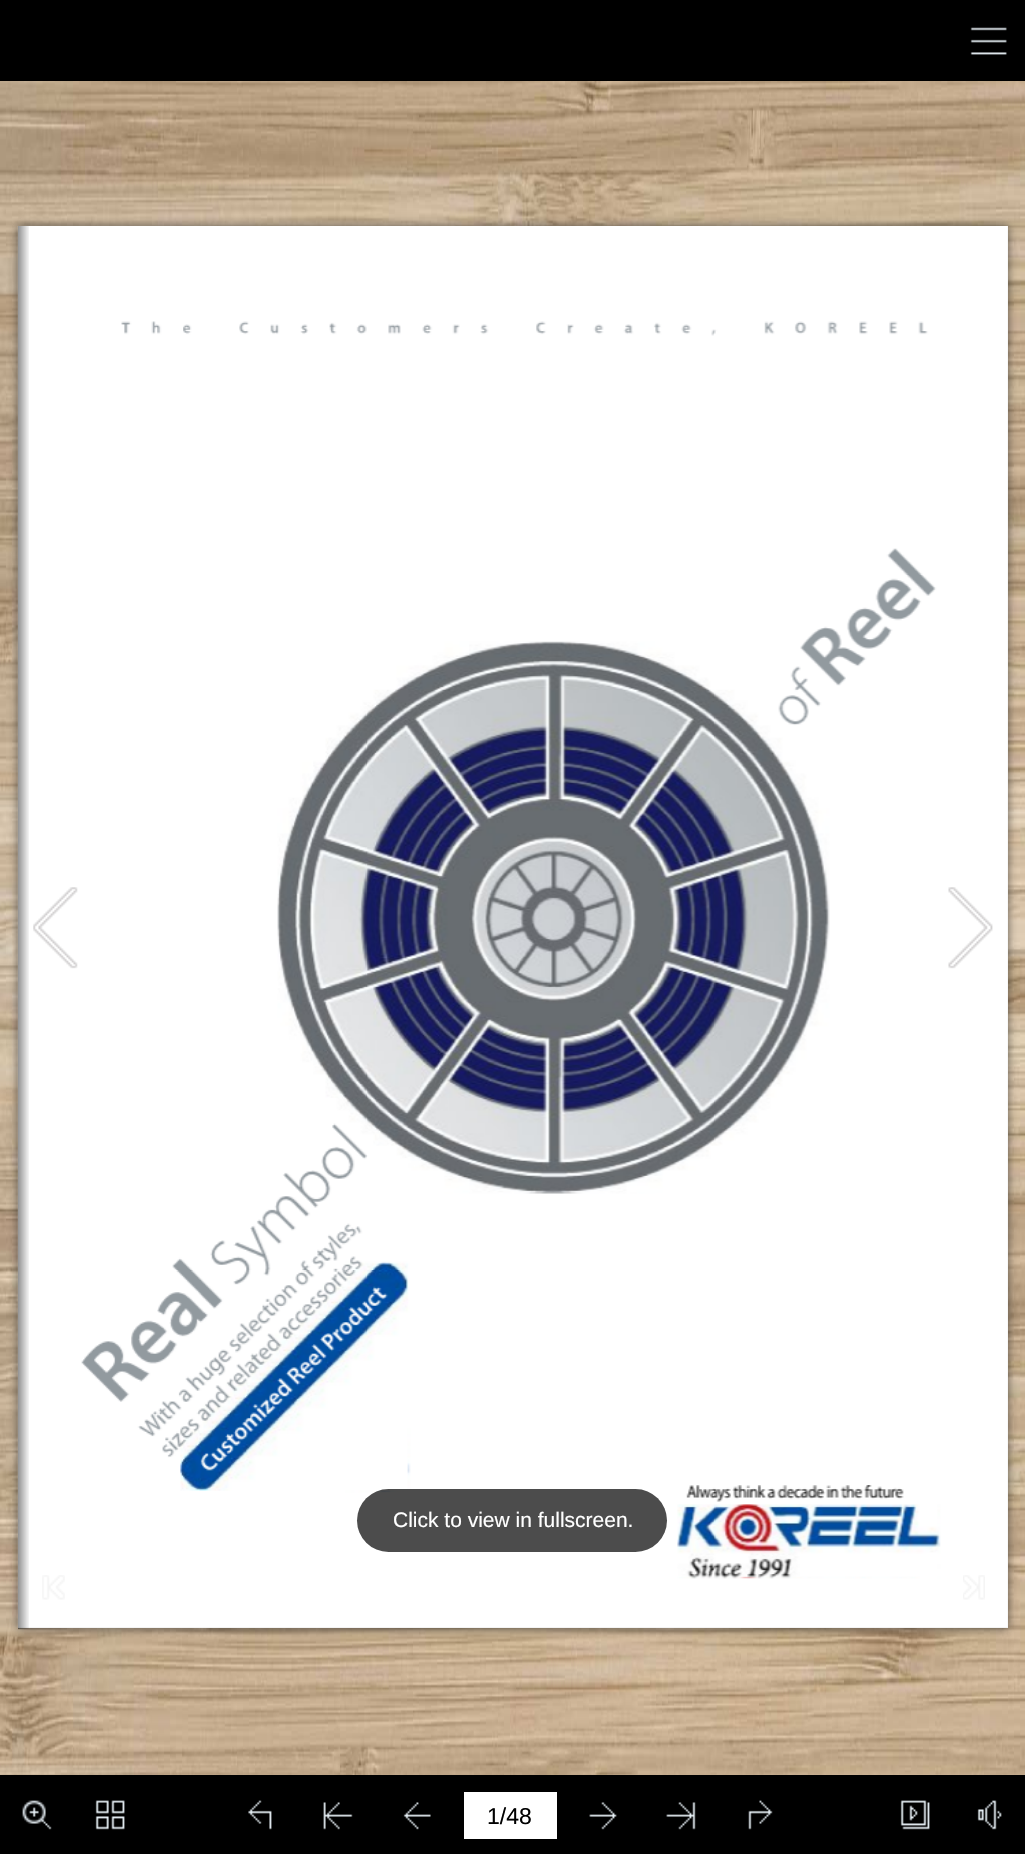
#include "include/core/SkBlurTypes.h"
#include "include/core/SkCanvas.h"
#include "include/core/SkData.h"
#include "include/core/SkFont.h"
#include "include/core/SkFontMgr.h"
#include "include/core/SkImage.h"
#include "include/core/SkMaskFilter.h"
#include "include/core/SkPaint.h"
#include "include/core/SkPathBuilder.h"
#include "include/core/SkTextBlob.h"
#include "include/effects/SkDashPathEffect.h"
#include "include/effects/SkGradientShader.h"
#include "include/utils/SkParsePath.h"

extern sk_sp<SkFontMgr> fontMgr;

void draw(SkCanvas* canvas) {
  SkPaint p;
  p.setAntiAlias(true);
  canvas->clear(SK_ColorWHITE);
  p.setColor(SK_ColorBLACK);
  canvas->drawRect(SkRect::MakeLTRB(0, 0, 1025, 81), p);
  canvas->drawImageRect(SkImages::DeferredFromEncodedData(SkData::MakeFromFileName("images/1.png")), SkRect::MakeLTRB(970, 27, 1007, 55), SkSamplingOptions());
  canvas->drawImageRect(SkImages::DeferredFromEncodedData(SkData::MakeFromFileName("images/2.png")), SkRect::MakeLTRB(0, 81, 1025, 1775), SkSamplingOptions());
  p.setColor(SkColorSetARGB(179, 40, 40, 40));
  p.setMaskFilter(SkMaskFilter::MakeBlur(kNormal_SkBlurStyle, 4.5f));
  canvas->drawRect(SkRect::MakeLTRB(18, 226, 1008, 1629), p);
  p.setMaskFilter(nullptr);
  p.setColor(SkColorSetRGB(232, 232, 232));
  canvas->drawRect(SkRect::MakeLTRB(18, 226, 1008, 1628), p);
  canvas->drawImageRect(SkImages::DeferredFromEncodedData(SkData::MakeFromFileName("images/6.png")), SkRect::MakeLTRB(18, 226, 1008, 1628), SkSamplingOptions());
  canvas->drawImageRect(SkImages::DeferredFromEncodedData(SkData::MakeFromFileName("images/3.png")), SkRect::MakeLTRB(33, 887, 78, 969), SkSamplingOptions());
  canvas->drawImageRect(SkImages::DeferredFromEncodedData(SkData::MakeFromFileName("images/4.png")), SkRect::MakeLTRB(948, 887, 993, 969), SkSamplingOptions());
  canvas->drawImageRect(SkImages::DeferredFromEncodedData(SkData::MakeFromFileName("images/5.png")), SkRect::MakeLTRB(17, 226, 18, 1628), SkSamplingOptions());
  canvas->drawImageRect(SkImages::DeferredFromEncodedData(SkData::MakeFromFileName("images/7.png")), SkRect::MakeLTRB(18, 1628, 67, 1630), SkSamplingOptions());
  {
    const SkColor colors[] = {SkColorSetARGB(128, 20, 20, 20), SkColorSetARGB(0, 20, 20, 20)};
    const float stops[] = {0, 1};
    const SkPoint ends[] = {{17, 928}, {30, 928}};
    p.setShader(SkGradientShader::MakeLinear(ends, colors, stops, 2, SkTileMode::kClamp));
    p.setAlpha(255);
  }
  canvas->drawRect(SkRect::MakeLTRB(18, 226, 29, 1629), p);
  p.setShader(nullptr);
  p.setColor(SkColorSetARGB(179, 0, 0, 0));
  canvas->drawRoundRect(SkRect::MakeLTRB(357, 1489, 667, 1552), 31.5f, 31.5f, p);
  canvas->drawImageRect(SkImages::DeferredFromEncodedData(SkData::MakeFromFileName("images/8.png")), SkRect::MakeLTRB(42, 1575, 65, 1600), SkSamplingOptions());
  canvas->drawImageRect(SkImages::DeferredFromEncodedData(SkData::MakeFromFileName("images/9.png")), SkRect::MakeLTRB(963, 1575, 985, 1600), SkSamplingOptions());
  p.setColor(SK_ColorBLACK);
  canvas->drawRect(SkRect::MakeLTRB(0, 1775, 1025, 1854), p);
  canvas->drawImageRect(SkImages::DeferredFromEncodedData(SkData::MakeFromFileName("images/10.png")), SkRect::MakeLTRB(22, 1800, 52, 1830), SkSamplingOptions());
  canvas->drawImageRect(SkImages::DeferredFromEncodedData(SkData::MakeFromFileName("images/11.png")), SkRect::MakeLTRB(95, 1800, 125, 1830), SkSamplingOptions());
  canvas->drawImageRect(SkImages::DeferredFromEncodedData(SkData::MakeFromFileName("images/12.png")), SkRect::MakeLTRB(248, 1800, 272, 1830), SkSamplingOptions());
  canvas->drawImageRect(SkImages::DeferredFromEncodedData(SkData::MakeFromFileName("images/13.png")), SkRect::MakeLTRB(323, 1802, 353, 1830), SkSamplingOptions());
  canvas->drawImageRect(SkImages::DeferredFromEncodedData(SkData::MakeFromFileName("images/14.png")), SkRect::MakeLTRB(403, 1802, 431, 1830), SkSamplingOptions());
  p.setColor(SK_ColorWHITE);
  canvas->drawRect(SkRect::MakeLTRB(464, 1792, 557, 1839), p);
  canvas->drawImageRect(SkImages::DeferredFromEncodedData(SkData::MakeFromFileName("images/15.png")), SkRect::MakeLTRB(589, 1802, 617, 1830), SkSamplingOptions());
  canvas->drawImageRect(SkImages::DeferredFromEncodedData(SkData::MakeFromFileName("images/16.png")), SkRect::MakeLTRB(666, 1802, 696, 1830), SkSamplingOptions());
  canvas->drawImageRect(SkImages::DeferredFromEncodedData(SkData::MakeFromFileName("images/17.png")), SkRect::MakeLTRB(748, 1800, 773, 1830), SkSamplingOptions());
  canvas->drawImageRect(SkImages::DeferredFromEncodedData(SkData::MakeFromFileName("images/18.png")), SkRect::MakeLTRB(900, 1800, 930, 1830), SkSamplingOptions());
  canvas->drawImageRect(SkImages::DeferredFromEncodedData(SkData::MakeFromFileName("images/19.png")), SkRect::MakeLTRB(977, 1800, 1002, 1830), SkSamplingOptions());
  SkFont font1(fontMgr->matchFamilyStyle("Liberation Sans", SkFontStyle::Normal()), 21);
  font1.setSubpixel(true);
  canvas->drawString("Click to view in fullscreen.", 393, 1527, font1, p);
  SkFont font2(fontMgr->matchFamilyStyle("Liberation Sans", SkFontStyle::Normal()), 23);
  font2.setSubpixel(true);
  p.setColor(SK_ColorBLACK);
  canvas->drawString("1/48", 487, 1824, font2, p);
}
